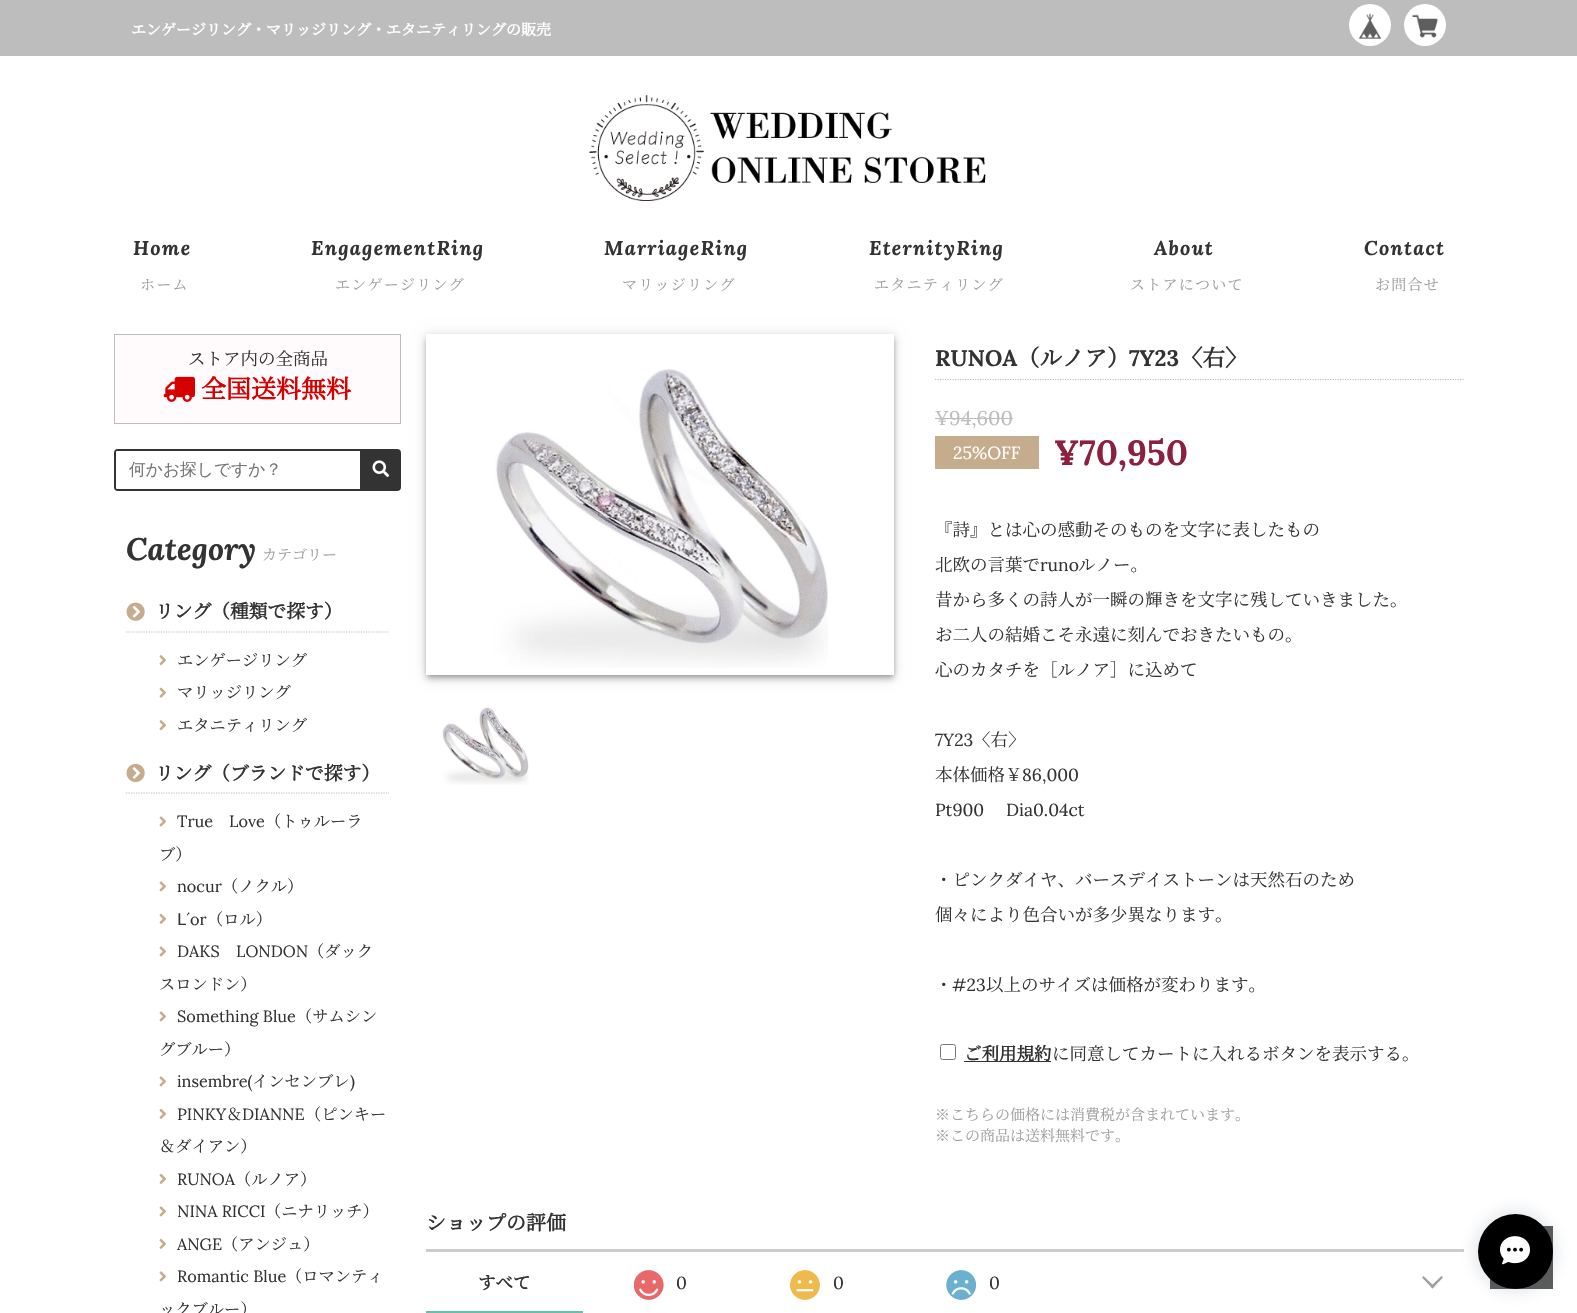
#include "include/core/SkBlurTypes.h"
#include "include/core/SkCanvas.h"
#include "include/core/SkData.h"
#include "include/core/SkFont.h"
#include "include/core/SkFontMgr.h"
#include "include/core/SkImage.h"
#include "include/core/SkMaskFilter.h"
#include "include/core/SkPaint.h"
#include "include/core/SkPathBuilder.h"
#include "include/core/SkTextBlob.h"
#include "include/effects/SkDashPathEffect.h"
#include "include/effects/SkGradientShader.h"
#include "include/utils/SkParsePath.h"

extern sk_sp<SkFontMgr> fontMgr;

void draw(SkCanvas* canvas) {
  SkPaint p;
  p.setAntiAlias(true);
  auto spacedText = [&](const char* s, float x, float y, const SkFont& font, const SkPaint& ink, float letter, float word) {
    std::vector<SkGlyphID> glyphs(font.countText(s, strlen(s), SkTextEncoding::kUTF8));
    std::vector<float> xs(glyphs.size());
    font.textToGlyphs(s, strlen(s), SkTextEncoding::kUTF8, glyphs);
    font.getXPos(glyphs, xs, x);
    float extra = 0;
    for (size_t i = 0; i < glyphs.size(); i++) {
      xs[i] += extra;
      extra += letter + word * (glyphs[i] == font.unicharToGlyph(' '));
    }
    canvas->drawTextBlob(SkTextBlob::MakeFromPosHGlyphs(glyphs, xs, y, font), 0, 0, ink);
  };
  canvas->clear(SK_ColorWHITE);
  p.setColor(SkColorSetRGB(189, 189, 189));
  canvas->drawRect(SkRect::MakeLTRB(0, 0, 1577, 56), p);
  p.setColor(SK_ColorWHITE);
  canvas->drawCircle(1370, 25, 21, p);
  canvas->drawImageRect(SkImages::DeferredFromEncodedData(SkData::MakeFromFileName("images/1.png")), SkRect::MakeLTRB(1358, 13, 1382, 39), SkSamplingOptions());
  canvas->drawCircle(1425, 25, 21, p);
  canvas->drawImageRect(SkImages::DeferredFromEncodedData(SkData::MakeFromFileName("images/2.png")), SkRect::MakeLTRB(1412, 14, 1438, 38), SkSamplingOptions());
  canvas->drawImageRect(SkImages::DeferredFromEncodedData(SkData::MakeFromFileName("images/3.png")), SkRect::MakeLTRB(588, 95, 986, 201), SkSamplingOptions());
  p.setColor(SkColorSetRGB(255, 250, 252));
  canvas->drawRect(SkRect::MakeLTRB(114.5f, 334.5f, 400.5f, 423.5f), p);
  p.setStyle(SkPaint::kStroke_Style);
  p.setStrokeWidth(1);
  p.setColor(SkColorSetRGB(189, 189, 189));
  canvas->drawRect(SkRect::MakeLTRB(114.5f, 334.5f, 400.5f, 423.5f), p);
  canvas->drawImageRect(SkImages::DeferredFromEncodedData(SkData::MakeFromFileName("images/4.png")), SkRect::MakeLTRB(163, 376, 195, 402), SkSamplingOptions());
  p.setStrokeWidth(3);
  p.setColor(SkColorSetRGB(51, 51, 51));
  canvas->drawRoundRect(SkRect::MakeLTRB(115.5f, 450.5f, 399.5f, 489.5f), 2.5f, 2.5f, p);
  p.setStyle(SkPaint::kFill_Style);
  p.setColor(SK_ColorWHITE);
  canvas->drawPath(SkPathBuilder().moveTo(117, 451).lineTo(363, 451).lineTo(363, 489).lineTo(117, 489).cubicTo(116.5f, 489, 116, 488.5f, 116, 488).lineTo(116, 452).cubicTo(116, 451.5f, 116.5f, 451, 117, 451).close().detach(), p);
  p.setColor(SkColorSetRGB(51, 51, 51));
  canvas->drawPath(SkPathBuilder().moveTo(360, 451).lineTo(398, 451).cubicTo(398.5f, 451, 399, 451.5f, 399, 452).lineTo(399, 488).cubicTo(399, 488.5f, 398.5f, 489, 398, 489).lineTo(360, 489).close().detach(), p);
  canvas->drawImageRect(SkImages::DeferredFromEncodedData(SkData::MakeFromFileName("images/5.png")), SkRect::MakeLTRB(372, 460, 390, 477), SkSamplingOptions());
  p.setStyle(SkPaint::kStroke_Style);
  p.setStrokeWidth(1.2f);
  p.setColor(SkColorSetRGB(189, 189, 189));
  p.setPathEffect(SkDashPathEffect::Make({{1.25f, 1.25f}}, 0));
  canvas->drawPath(SkPathBuilder().moveTo(126, 632).lineTo(389, 632).detach(), p);
  p.setPathEffect(nullptr);
  canvas->drawImageRect(SkImages::DeferredFromEncodedData(SkData::MakeFromFileName("images/6.png")), SkRect::MakeLTRB(126, 602, 145, 621), SkSamplingOptions());
  canvas->drawImageRect(SkImages::DeferredFromEncodedData(SkData::MakeFromFileName("images/7.png")), SkRect::MakeLTRB(159, 655, 166, 666), SkSamplingOptions());
  canvas->drawImageRect(SkImages::DeferredFromEncodedData(SkData::MakeFromFileName("images/8.png")), SkRect::MakeLTRB(159, 687, 166, 698), SkSamplingOptions());
  canvas->drawImageRect(SkImages::DeferredFromEncodedData(SkData::MakeFromFileName("images/7.png")), SkRect::MakeLTRB(159, 720, 166, 731), SkSamplingOptions());
  p.setPathEffect(SkDashPathEffect::Make({{1.25f, 1.25f}}, 0));
  canvas->drawPath(SkPathBuilder().moveTo(126, 793).lineTo(389, 793).detach(), p);
  p.setPathEffect(nullptr);
  canvas->drawImageRect(SkImages::DeferredFromEncodedData(SkData::MakeFromFileName("images/9.png")), SkRect::MakeLTRB(126, 763, 145, 782), SkSamplingOptions());
  canvas->drawImageRect(SkImages::DeferredFromEncodedData(SkData::MakeFromFileName("images/10.png")), SkRect::MakeLTRB(159, 816, 166, 827), SkSamplingOptions());
  canvas->drawImageRect(SkImages::DeferredFromEncodedData(SkData::MakeFromFileName("images/10.png")), SkRect::MakeLTRB(159, 881, 166, 892), SkSamplingOptions());
  canvas->drawImageRect(SkImages::DeferredFromEncodedData(SkData::MakeFromFileName("images/11.png")), SkRect::MakeLTRB(159, 913, 166, 924), SkSamplingOptions());
  canvas->drawImageRect(SkImages::DeferredFromEncodedData(SkData::MakeFromFileName("images/10.png")), SkRect::MakeLTRB(159, 946, 166, 957), SkSamplingOptions());
  canvas->drawImageRect(SkImages::DeferredFromEncodedData(SkData::MakeFromFileName("images/10.png")), SkRect::MakeLTRB(159, 1011, 166, 1022), SkSamplingOptions());
  canvas->drawImageRect(SkImages::DeferredFromEncodedData(SkData::MakeFromFileName("images/10.png")), SkRect::MakeLTRB(159, 1076, 166, 1087), SkSamplingOptions());
  canvas->drawImageRect(SkImages::DeferredFromEncodedData(SkData::MakeFromFileName("images/11.png")), SkRect::MakeLTRB(159, 1108, 166, 1119), SkSamplingOptions());
  canvas->drawImageRect(SkImages::DeferredFromEncodedData(SkData::MakeFromFileName("images/11.png")), SkRect::MakeLTRB(159, 1173, 166, 1184), SkSamplingOptions());
  canvas->drawImageRect(SkImages::DeferredFromEncodedData(SkData::MakeFromFileName("images/10.png")), SkRect::MakeLTRB(159, 1206, 166, 1217), SkSamplingOptions());
  canvas->drawImageRect(SkImages::DeferredFromEncodedData(SkData::MakeFromFileName("images/11.png")), SkRect::MakeLTRB(159, 1238, 166, 1249), SkSamplingOptions());
  canvas->drawImageRect(SkImages::DeferredFromEncodedData(SkData::MakeFromFileName("images/10.png")), SkRect::MakeLTRB(159, 1271, 166, 1282), SkSamplingOptions());
  p.setStyle(SkPaint::kFill_Style);
  p.setColor(SkColorSetARGB(77, 0, 0, 0));
  p.setMaskFilter(SkMaskFilter::MakeBlur(kNormal_SkBlurStyle, 2.5f));
  canvas->drawRect(SkRect::MakeLTRB(428, 338, 893, 676), p);
  p.setMaskFilter(nullptr);
  p.setColor(SkColorSetARGB(31, 0, 0, 0));
  p.setMaskFilter(SkMaskFilter::MakeBlur(kNormal_SkBlurStyle, 6));
  canvas->drawRect(SkRect::MakeLTRB(426, 335, 894, 676), p);
  p.setMaskFilter(nullptr);
  p.setColor(SkColorSetARGB(36, 0, 0, 0));
  p.setMaskFilter(SkMaskFilter::MakeBlur(kNormal_SkBlurStyle, 3));
  canvas->drawRect(SkRect::MakeLTRB(426, 339, 894, 680), p);
  p.setMaskFilter(nullptr);
  p.setColor(SK_ColorWHITE);
  canvas->drawRect(SkRect::MakeLTRB(426, 334, 894, 675), p);
  canvas->drawImageRect(SkImages::DeferredFromEncodedData(SkData::MakeFromFileName("images/12.png")), SkRect::MakeLTRB(494, 369, 828, 668), SkSamplingOptions());
  canvas->drawImageRect(SkImages::DeferredFromEncodedData(SkData::MakeFromFileName("images/13.png")), SkRect::MakeLTRB(442, 707, 529, 785), SkSamplingOptions());
  p.setStyle(SkPaint::kStroke_Style);
  p.setColor(SkColorSetRGB(189, 189, 189));
  p.setPathEffect(SkDashPathEffect::Make({{1.25f, 1.25f}}, 0));
  canvas->drawPath(SkPathBuilder().moveTo(935, 379.5f).lineTo(1464, 379.5f).detach(), p);
  p.setPathEffect(nullptr);
  p.setStyle(SkPaint::kFill_Style);
  canvas->drawRect(SkRect::MakeLTRB(935, 418, 1013, 419), p);
  p.setColor(SkColorSetRGB(197, 172, 141));
  canvas->drawRect(SkRect::MakeLTRB(935, 436, 1039, 469), p);
  p.setStyle(SkPaint::kStroke_Style);
  p.setStrokeWidth(1);
  p.setColor(SkColorSetRGB(118, 118, 118));
  canvas->drawRoundRect(SkRect::MakeLTRB(940.5f, 1044.5f, 955.5f, 1059.5f), 2, 2, p);
  p.setStyle(SkPaint::kFill_Style);
  p.setColor(SkColorSetRGB(51, 51, 51));
  canvas->drawRect(SkRect::MakeLTRB(964, 1061, 1051, 1062), p);
  p.setColor(SkColorSetRGB(204, 204, 204));
  canvas->drawRect(SkRect::MakeLTRB(426, 1249, 1464, 1252), p);
  canvas->drawImageRect(SkImages::DeferredFromEncodedData(SkData::MakeFromFileName("images/14.png")), SkRect::MakeLTRB(634, 1270, 664, 1300), SkSamplingOptions());
  canvas->drawImageRect(SkImages::DeferredFromEncodedData(SkData::MakeFromFileName("images/15.png")), SkRect::MakeLTRB(790, 1270, 820, 1300), SkSamplingOptions());
  canvas->drawImageRect(SkImages::DeferredFromEncodedData(SkData::MakeFromFileName("images/16.png")), SkRect::MakeLTRB(946, 1270, 976, 1300), SkSamplingOptions());
  p.setColor(SkColorSetRGB(99, 193, 174));
  canvas->drawRect(SkRect::MakeLTRB(426, 1311, 583, 1313), p);
  p.setColor(SkColorSetRGB(160, 160, 160));
  canvas->drawPath(SkPathBuilder().moveTo(1441.5f, 1276).lineTo(1443, 1277.5f).lineTo(1432.5f, 1288.5f).lineTo(1430.5f, 1286.5f).close().detach(), p);
  canvas->drawPath(SkPathBuilder().moveTo(1423.5f, 1276).lineTo(1434.5f, 1286.5f).lineTo(1432.5f, 1288.5f).lineTo(1422, 1277.5f).close().detach(), p);
  p.setColor(SkColorSetRGB(92, 92, 92));
  canvas->drawRect(SkRect::MakeLTRB(1490, 1226, 1553, 1289), p);
  p.setColor(SkColorSetARGB(51, 51, 66, 88));
  p.setMaskFilter(SkMaskFilter::MakeBlur(kNormal_SkBlurStyle, 9.5f));
  canvas->drawRoundRect(SkRect::MakeLTRB(1478, 1214, 1553, 1289), 37.5f, 37.5f, p);
  p.setMaskFilter(nullptr);
  p.setColor(SK_ColorBLACK);
  canvas->drawCircle(1515.5f, 1251.5f, 37.5f, p);
  canvas->drawImageRect(SkImages::DeferredFromEncodedData(SkData::MakeFromFileName("images/17.png")), SkRect::MakeLTRB(1500, 1236, 1530, 1265), SkSamplingOptions());
  SkFont font1(fontMgr->matchFamilyStyle("Noto Serif JP", SkFontStyle::Bold()), 15);
  font1.setSubpixel(true);
  p.setColor(SK_ColorWHITE);
  canvas->drawString("エンゲージリング・マリッジリング・エタニティリングの販売", 131, 35, font1, p);
  SkFont font2(fontMgr->matchFamilyStyle("Lora", SkFontStyle::BoldItalic()), 20);
  font2.setSubpixel(true);
  p.setColor(SkColorSetRGB(51, 51, 51));
  spacedText("Home", 133, 255, font2, p, 1.25f, 0);
  SkFont font3(fontMgr->matchFamilyStyle("Noto Serif JP", SkFontStyle(200, SkFontStyle::kNormal_Width, SkFontStyle::kUpright_Slant)), 15);
  font3.setSubpixel(true);
  p.setColor(SkColorSetRGB(158, 158, 158));
  spacedText("ホーム", 140, 290, font3, p, 1.25f, 0);
  p.setColor(SkColorSetRGB(51, 51, 51));
  spacedText("EngagementRing", 311, 255, font2, p, 1.25f, 0);
  p.setColor(SkColorSetRGB(158, 158, 158));
  spacedText("エンゲージリング", 335, 290, font3, p, 1.25f, 0);
  p.setColor(SkColorSetRGB(51, 51, 51));
  spacedText("MarriageRing", 604, 255, font2, p, 1.25f, 0);
  p.setColor(SkColorSetRGB(158, 158, 158));
  spacedText("マリッジリング", 622, 290, font3, p, 1.25f, 0);
  p.setColor(SkColorSetRGB(51, 51, 51));
  spacedText("EternityRing", 869, 255, font2, p, 1.25f, 0);
  p.setColor(SkColorSetRGB(158, 158, 158));
  spacedText("エタニティリング", 874, 290, font3, p, 1.25f, 0);
  p.setColor(SkColorSetRGB(51, 51, 51));
  spacedText("About", 1154, 255, font2, p, 1.25f, 0);
  p.setColor(SkColorSetRGB(158, 158, 158));
  spacedText("ストアについて", 1130, 290, font3, p, 1.25f, 0);
  p.setColor(SkColorSetRGB(51, 51, 51));
  spacedText("Contact", 1364, 255, font2, p, 1.25f, 0);
  p.setColor(SkColorSetRGB(158, 158, 158));
  spacedText("お問合せ", 1375, 290, font3, p, 1.25f, 0);
  SkFont font4(fontMgr->matchFamilyStyle("Noto Serif JP", SkFontStyle(200, SkFontStyle::kNormal_Width, SkFontStyle::kUpright_Slant)), 17.5f);
  font4.setSubpixel(true);
  p.setColor(SkColorSetRGB(51, 51, 51));
  canvas->drawString("ストア内の全商品", 188, 365, font4, p);
  SkFont font5(fontMgr->matchFamilyStyle("Noto Serif JP", SkFontStyle::Bold()), 25);
  font5.setSubpixel(true);
  p.setColor(SkColorSetRGB(213, 0, 0));
  canvas->drawString("全国送料無料", 201, 398, font5, p);
  SkFont font6(fontMgr->matchFamilyStyle("WenQuanYi Zen Hei", SkFontStyle(500, SkFontStyle::kNormal_Width, SkFontStyle::kUpright_Slant)), 16.75f);
  font6.setSubpixel(true);
  p.setColor(SkColorSetRGB(117, 117, 117));
  canvas->drawString("何かお探しですか？", 129, 475, font6, p);
  SkFont font7(fontMgr->matchFamilyStyle("Lora", SkFontStyle::BoldItalic()), 31.25f);
  font7.setSubpixel(true);
  p.setColor(SkColorSetRGB(51, 51, 51));
  canvas->drawString("Category", 126, 560, font7, p);
  p.setColor(SkColorSetRGB(158, 158, 158));
  canvas->drawString("カテゴリー", 262, 560, font3, p);
  SkFont font8(fontMgr->matchFamilyStyle("Noto Serif JP", SkFontStyle::Bold()), 18.75f);
  font8.setSubpixel(true);
  p.setColor(SkColorSetRGB(51, 51, 51));
  canvas->drawString("リング（種類で探す）", 155, 618, font8, p);
  SkFont font9(fontMgr->matchFamilyStyle("Noto Serif JP", SkFontStyle(200, SkFontStyle::kNormal_Width, SkFontStyle::kUpright_Slant)), 16.25f);
  font9.setSubpixel(true);
  canvas->drawString("エンゲージリング", 177, 666, font9, p);
  canvas->drawString("マリッジリング", 177, 698, font9, p);
  canvas->drawString("エタニティリング", 177, 731, font9, p);
  canvas->drawString("リング（ブランドで探す）", 155, 780, font8, p);
  SkFont font10(fontMgr->matchFamilyStyle("Lora", SkFontStyle::Normal()), 16.25f);
  font10.setSubpixel(true);
  canvas->drawString("True", 177, 827, font10, p);
  canvas->drawString("Love", 229, 827, font10, p);
  canvas->drawString("（トゥルーラ", 265, 827, font9, p);
  canvas->drawString("ブ）", 159, 860, font9, p);
  canvas->drawString("nocur", 177, 892, font10, p);
  canvas->drawString("（ノクル）", 222, 892, font9, p);
  SkFont font11(fontMgr->matchFamilyStyle("DejaVu Sans", SkFontStyle::Normal()), 16.25f);
  font11.setSubpixel(true);
  canvas->drawString("Ⅼ", 177, 925, font11, p);
  canvas->drawString("´or", 186, 925, font10, p);
  canvas->drawString("（ロル）", 207, 925, font9, p);
  canvas->drawString("DAKS", 177, 957, font10, p);
  canvas->drawString("LONDON", 236, 957, font10, p);
  canvas->drawString("（ダック", 308, 957, font9, p);
  canvas->drawString("スロンドン）", 159, 990, font9, p);
  canvas->drawString("Something Blue", 177, 1022, font10, p);
  canvas->drawString("（サムシン", 296, 1022, font9, p);
  canvas->drawString("グブルー）", 159, 1055, font9, p);
  canvas->drawString("insembre(", 177, 1087, font10, p);
  canvas->drawString("インセンブレ", 252, 1087, font9, p);
  canvas->drawString(")", 350, 1087, font10, p);
  canvas->drawString("PINKY", 177, 1120, font10, p);
  canvas->drawString("＆", 226, 1120, font9, p);
  canvas->drawString("DIANNE", 242, 1120, font10, p);
  canvas->drawString("（ピンキー", 305, 1120, font9, p);
  canvas->drawString("＆ダイアン）", 159, 1152, font9, p);
  canvas->drawString("RUNOA", 177, 1185, font10, p);
  canvas->drawString("（ルノア）", 235, 1185, font9, p);
  canvas->drawString("NINA RICCI", 177, 1217, font10, p);
  canvas->drawString("（ニナリッチ）", 265, 1217, font9, p);
  canvas->drawString("ANGE", 177, 1250, font10, p);
  canvas->drawString("（アンジュ）", 222, 1250, font9, p);
  canvas->drawString("Romantic Blue", 177, 1282, font10, p);
  canvas->drawString("（ロマンティ", 286, 1282, font9, p);
  canvas->drawString("ックブルー）", 159, 1315, font9, p);
  SkFont font12(fontMgr->matchFamilyStyle("Lora", SkFontStyle::Bold()), 22.5f);
  font12.setSubpixel(true);
  canvas->drawString("RUNOA", 935, 366, font12, p);
  SkFont font13(fontMgr->matchFamilyStyle("Noto Serif JP", SkFontStyle::Bold()), 22.5f);
  font13.setSubpixel(true);
  canvas->drawString("（ルノア）", 1017, 366, font13, p);
  canvas->drawString("7Y23", 1129, 366, font12, p);
  canvas->drawString("〈右〉", 1180, 366, font13, p);
  SkFont font14(fontMgr->matchFamilyStyle("Lora", SkFontStyle::Normal()), 20);
  font14.setSubpixel(true);
  p.setColor(SkColorSetRGB(189, 189, 189));
  canvas->drawString("¥94,600", 935, 425, font14, p);
  SkFont font15(fontMgr->matchFamilyStyle("Lora", SkFontStyle::Normal()), 17.5f);
  font15.setSubpixel(true);
  p.setColor(SK_ColorWHITE);
  canvas->drawString("25%OFF", 953, 459, font15, p);
  SkFont font16(fontMgr->matchFamilyStyle("Lora", SkFontStyle::Bold()), 35);
  font16.setSubpixel(true);
  p.setColor(SkColorSetRGB(139, 33, 63));
  canvas->drawString("¥70,950", 1054, 465, font16, p);
  p.setColor(SkColorSetRGB(51, 51, 51));
  canvas->drawString("『詩』とは心の感動そのものを文字に表したもの", 935, 536, font4, p);
  canvas->drawString("北欧の言葉で", 935, 571, font4, p);
  canvas->drawString("runo", 1040, 571, font15, p);
  canvas->drawString("ルノー。", 1078, 571, font4, p);
  canvas->drawString("昔から多くの詩人が一瞬の輝きを文字に残していきました。", 935, 606, font4, p);
  canvas->drawString("お二人の結婚こそ永遠に刻んでおきたいもの。", 935, 641, font4, p);
  canvas->drawString("心のカタチを［ルノア］に込めて", 935, 676, font4, p);
  canvas->drawString("7Y23", 935, 746, font15, p);
  canvas->drawString("〈右〉", 973, 746, font4, p);
  canvas->drawString("本体価格￥", 935, 781, font4, p);
  canvas->drawString("86,000", 1022, 781, font15, p);
  canvas->drawString("Pt900", 935, 816, font15, p);
  canvas->drawString("Dia0.04ct", 1006, 816, font15, p);
  canvas->drawString("・ピンクダイヤ、バースデイストーンは天然石のため", 935, 886, font4, p);
  canvas->drawString("個々により色合いが多少異なります。", 935, 921, font4, p);
  canvas->drawString("・", 935, 991, font4, p);
  canvas->drawString("#23", 952, 991, font15, p);
  canvas->drawString("以上のサイズは価格が変わります。", 986, 991, font4, p);
  SkFont font17(fontMgr->matchFamilyStyle("Noto Serif JP", SkFontStyle::Bold()), 17.5f);
  font17.setSubpixel(true);
  canvas->drawString("ご利用規約", 964, 1060, font17, p);
  canvas->drawString("に同意してカートに入れるボタンを表示する。", 1052, 1060, font4, p);
  p.setColor(SkColorSetRGB(158, 158, 158));
  canvas->drawString("※こちらの価格には消費税が含まれています。", 935, 1120, font3, p);
  canvas->drawString("※この商品は送料無料です。", 935, 1141, font3, p);
  SkFont font18(fontMgr->matchFamilyStyle("Noto Serif JP", SkFontStyle::Bold()), 20);
  font18.setSubpixel(true);
  p.setColor(SkColorSetRGB(51, 51, 51));
  canvas->drawString("ショップの評価", 426, 1230, font18, p);
  canvas->drawString("すべて", 478, 1289, font17, p);
  canvas->drawString("0", 676, 1289, font15, p);
  canvas->drawString("0", 833, 1289, font15, p);
  canvas->drawString("0", 989, 1289, font15, p);
}
